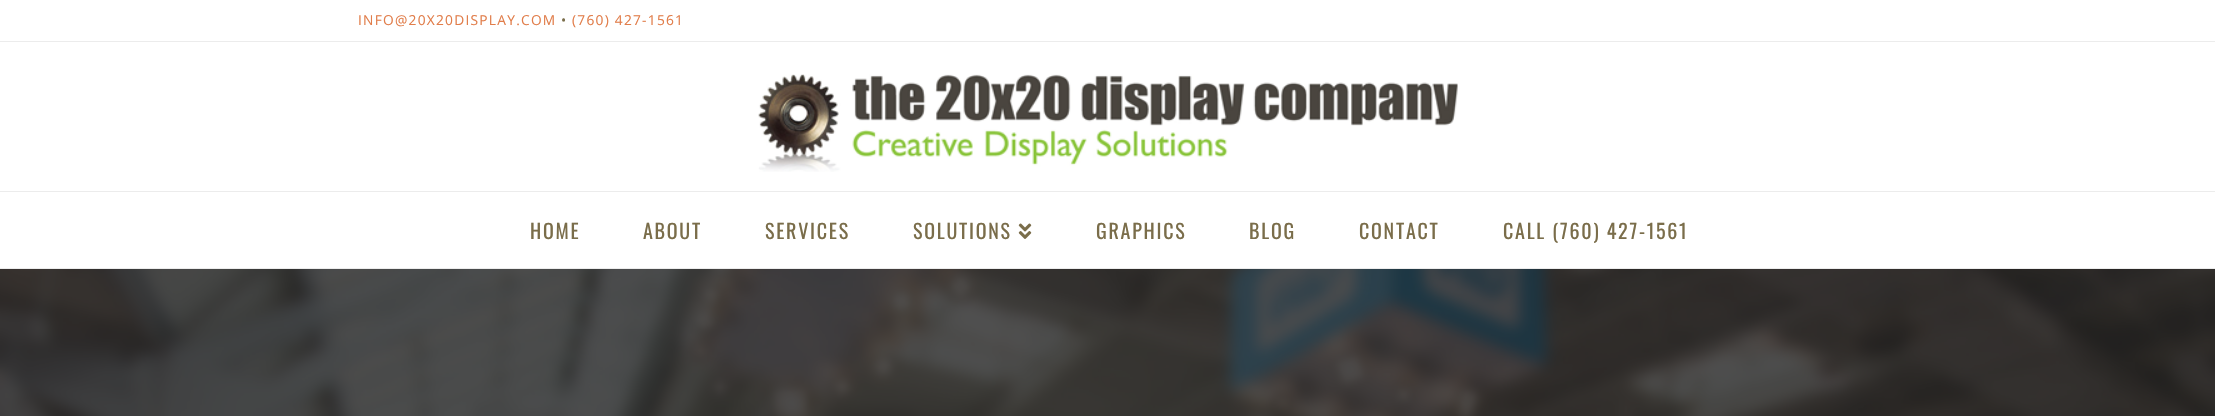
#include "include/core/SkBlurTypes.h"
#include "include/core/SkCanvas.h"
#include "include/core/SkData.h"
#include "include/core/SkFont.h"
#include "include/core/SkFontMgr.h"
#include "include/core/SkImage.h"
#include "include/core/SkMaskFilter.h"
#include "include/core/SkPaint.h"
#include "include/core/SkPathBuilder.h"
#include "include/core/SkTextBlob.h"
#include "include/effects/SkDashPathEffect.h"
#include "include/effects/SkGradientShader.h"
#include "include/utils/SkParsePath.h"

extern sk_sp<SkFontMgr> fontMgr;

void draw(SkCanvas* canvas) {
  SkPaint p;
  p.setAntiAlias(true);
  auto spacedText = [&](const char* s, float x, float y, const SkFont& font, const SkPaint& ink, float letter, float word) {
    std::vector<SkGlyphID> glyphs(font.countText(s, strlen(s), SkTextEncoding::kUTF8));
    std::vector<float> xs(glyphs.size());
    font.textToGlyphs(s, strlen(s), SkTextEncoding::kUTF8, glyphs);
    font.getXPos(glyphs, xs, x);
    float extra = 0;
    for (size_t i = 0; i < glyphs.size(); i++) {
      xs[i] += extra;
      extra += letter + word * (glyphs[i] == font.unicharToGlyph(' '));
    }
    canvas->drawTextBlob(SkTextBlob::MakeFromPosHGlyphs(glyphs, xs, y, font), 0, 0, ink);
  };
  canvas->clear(SK_ColorWHITE);
  p.setColor(SkColorSetRGB(236, 236, 236));
  canvas->drawRect(SkRect::MakeLTRB(0, 41, 2215, 42), p);
  canvas->drawRect(SkRect::MakeLTRB(0, 191, 2215, 192), p);
  canvas->drawImageRect(SkImages::DeferredFromEncodedData(SkData::MakeFromFileName("images/1.png")), SkRect::MakeLTRB(758, 74, 1458, 172), SkSamplingOptions());
  canvas->drawRect(SkRect::MakeLTRB(0, 268, 2215, 269), p);
  canvas->drawImageRect(SkImages::DeferredFromEncodedData(SkData::MakeFromFileName("images/2.png")), SkRect::MakeLTRB(1018, 223, 1032, 239), SkSamplingOptions());
  canvas->drawImageRect(SkImages::DeferredFromEncodedData(SkData::MakeFromFileName("images/3.png")), SkRect::MakeLTRB(0, 269, 2215, 416), SkSamplingOptions());
  SkFont font1(fontMgr->matchFamilyStyle("Open Sans", SkFontStyle::Normal()), 13.75f);
  font1.setSubpixel(true);
  p.setColor(SkColorSetRGB(225, 125, 74));
  spacedText("INFO@20X20DISPLAY.COM", 358, 25, font1, p, 1.25f, 0);
  p.setColor(SkColorSetRGB(122, 109, 74));
  spacedText("•", 561, 25, font1, p, 1.25f, 0);
  p.setColor(SkColorSetRGB(225, 125, 74));
  spacedText("(760) 427-1561", 572, 25, font1, p, 1.25f, 0);
  SkFont font2(fontMgr->matchFamilyStyle("Oswald", SkFontStyle::Normal()), 20);
  font2.setSubpixel(true);
  p.setColor(SkColorSetRGB(122, 109, 74));
  spacedText("HOME", 530, 239, font2, p, 1.75f, 0);
  spacedText("ABOUT", 643, 239, font2, p, 1.75f, 0);
  spacedText("SERVICES", 765, 239, font2, p, 1.75f, 0);
  spacedText("SOLUTIONS", 913, 239, font2, p, 1.75f, 0);
  spacedText("GRAPHICS", 1096, 239, font2, p, 1.75f, 0);
  spacedText("BLOG", 1249, 239, font2, p, 1.75f, 0);
  spacedText("CONTACT", 1359, 239, font2, p, 1.75f, 0);
  spacedText("CALL (760) 427-1561", 1503, 239, font2, p, 1.75f, 0);
}
